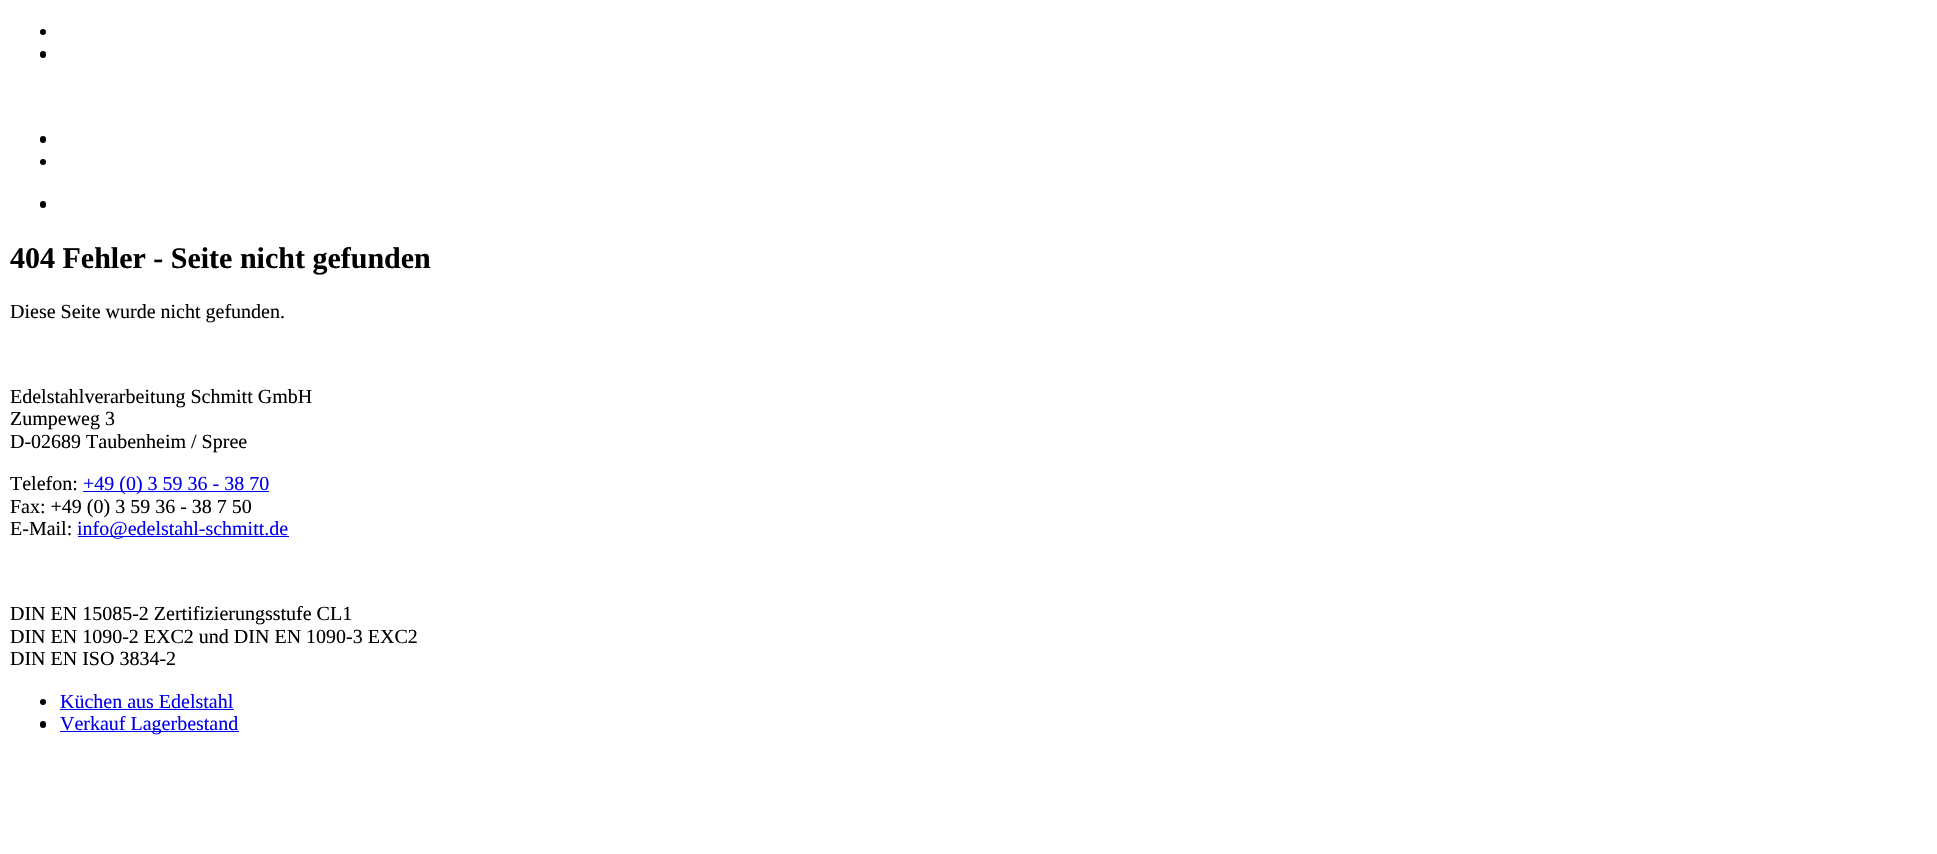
#include "include/core/SkBlurTypes.h"
#include "include/core/SkCanvas.h"
#include "include/core/SkData.h"
#include "include/core/SkFont.h"
#include "include/core/SkFontMgr.h"
#include "include/core/SkImage.h"
#include "include/core/SkMaskFilter.h"
#include "include/core/SkPaint.h"
#include "include/core/SkPathBuilder.h"
#include "include/core/SkTextBlob.h"
#include "include/effects/SkDashPathEffect.h"
#include "include/effects/SkGradientShader.h"
#include "include/utils/SkParsePath.h"

extern sk_sp<SkFontMgr> fontMgr;

void draw(SkCanvas* canvas) {
  SkPaint p;
  p.setAntiAlias(true);
  canvas->clear(SK_ColorWHITE);
  p.setColor(SK_ColorBLACK);
  canvas->drawCircle(43, 32, 3, p);
  canvas->drawRoundRect(SkRect::MakeLTRB(40, 51, 46, 58), 3, 3, p);
  canvas->drawRoundRect(SkRect::MakeLTRB(40, 136, 46, 143), 3, 3, p);
  canvas->drawCircle(43, 162, 3, p);
  canvas->drawRoundRect(SkRect::MakeLTRB(40, 201, 46, 208), 3, 3, p);
  p.setColor(SkColorSetRGB(0, 0, 238));
  canvas->drawRect(SkRect::MakeLTRB(83, 491, 269, 492), p);
  canvas->drawRect(SkRect::MakeLTRB(78, 536, 289, 537), p);
  p.setColor(SK_ColorBLACK);
  canvas->drawCircle(43, 702, 3, p);
  p.setColor(SkColorSetRGB(0, 0, 238));
  canvas->drawRect(SkRect::MakeLTRB(60, 709, 234, 710), p);
  p.setColor(SK_ColorBLACK);
  canvas->drawRoundRect(SkRect::MakeLTRB(40, 721, 46, 728), 3, 3, p);
  p.setColor(SkColorSetRGB(0, 0, 238));
  canvas->drawRect(SkRect::MakeLTRB(60, 731, 239, 732), p);
  SkFont font1(fontMgr->matchFamilyStyle("Liberation Serif", SkFontStyle::Bold()), 30);
  font1.setSubpixel(true);
  p.setColor(SK_ColorBLACK);
  canvas->drawString("404 Fehler - Seite nicht gefunden", 10, 268, font1, p);
  SkFont font2(fontMgr->matchFamilyStyle("Liberation Serif", SkFontStyle::Normal()), 20);
  font2.setSubpixel(true);
  canvas->drawString("Diese Seite wurde nicht gefunden.", 10, 318, font2, p);
  canvas->drawString("Edelstahlverarbeitung Schmitt GmbH", 10, 403, font2, p);
  canvas->drawString("Zumpeweg 3", 10, 425, font2, p);
  canvas->drawString("D-02689 Taubenheim / Spree", 10, 448, font2, p);
  canvas->drawString("Telefon:", 10, 490, font2, p);
  p.setColor(SkColorSetRGB(0, 0, 238));
  canvas->drawString("+49 (0) 3 59 36 - 38 70", 83, 490, font2, p);
  p.setColor(SK_ColorBLACK);
  canvas->drawString("Fax: +49 (0) 3 59 36 - 38 7 50", 10, 513, font2, p);
  canvas->drawString("E-Mail:", 10, 535, font2, p);
  p.setColor(SkColorSetRGB(0, 0, 238));
  canvas->drawString("info@edelstahl-schmitt.de", 77, 535, font2, p);
  p.setColor(SK_ColorBLACK);
  canvas->drawString("DIN EN 15085-2 Zertifizierungsstufe CL1", 10, 620, font2, p);
  canvas->drawString("DIN EN 1090-2 EXC2 und DIN EN 1090-3 EXC2", 10, 643, font2, p);
  canvas->drawString("DIN EN ISO 3834-2", 10, 665, font2, p);
  p.setColor(SkColorSetRGB(0, 0, 238));
  canvas->drawString("Küchen aus Edelstahl", 60, 708, font2, p);
  canvas->drawString("Verkauf Lagerbestand", 60, 730, font2, p);
}
